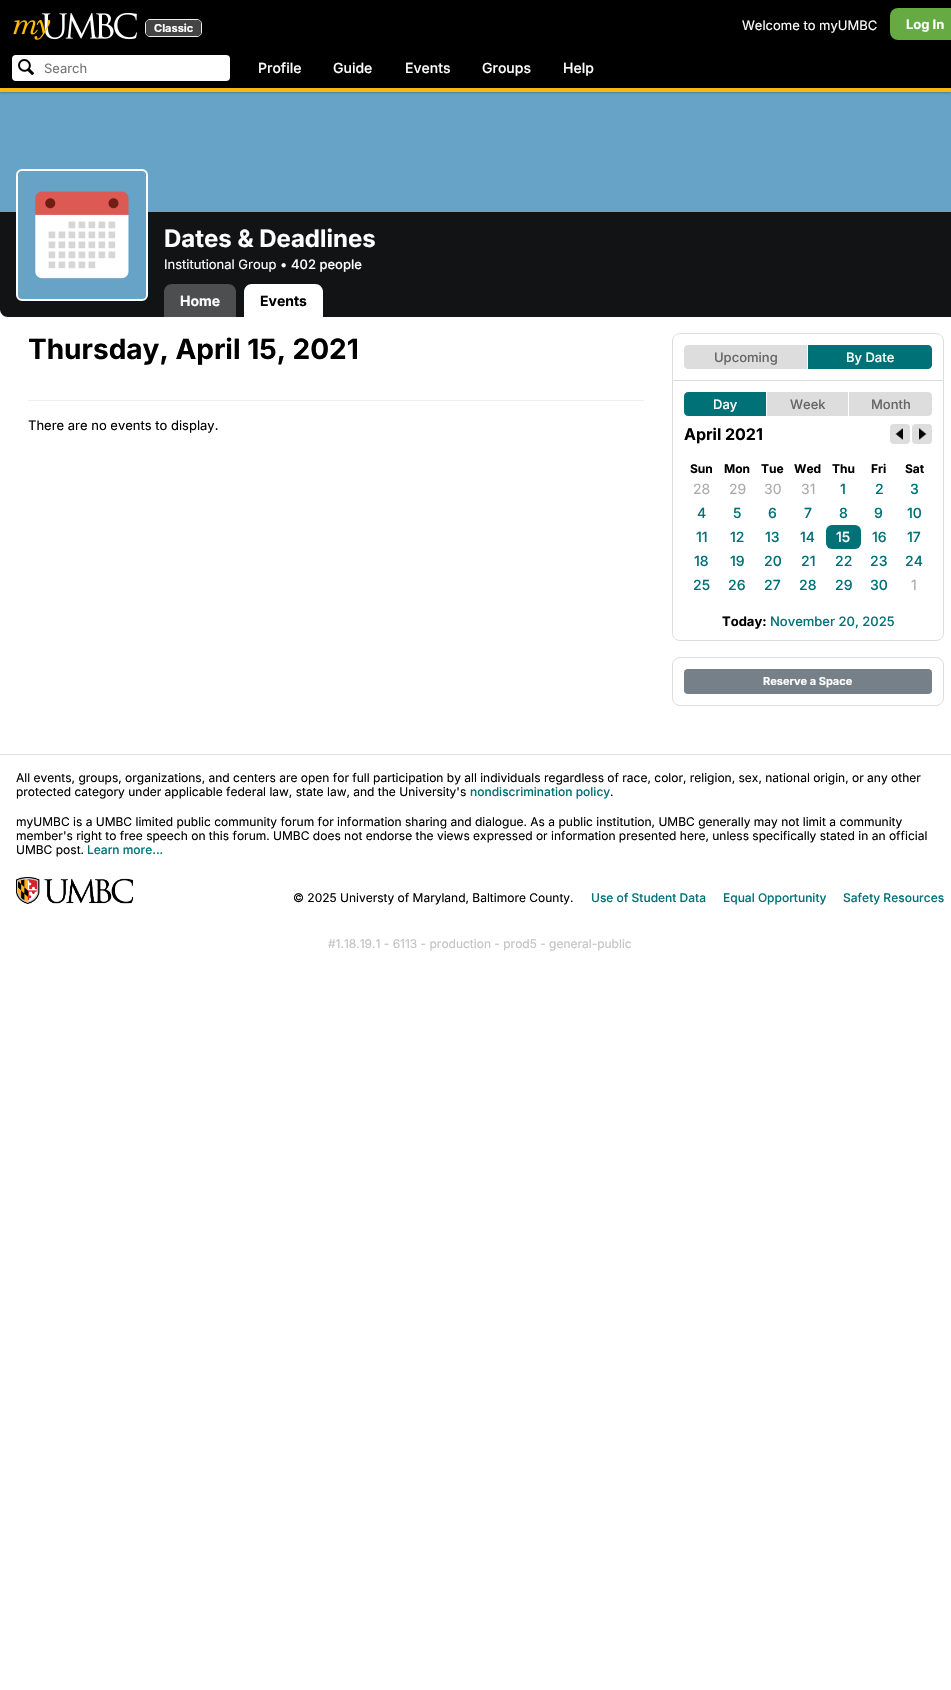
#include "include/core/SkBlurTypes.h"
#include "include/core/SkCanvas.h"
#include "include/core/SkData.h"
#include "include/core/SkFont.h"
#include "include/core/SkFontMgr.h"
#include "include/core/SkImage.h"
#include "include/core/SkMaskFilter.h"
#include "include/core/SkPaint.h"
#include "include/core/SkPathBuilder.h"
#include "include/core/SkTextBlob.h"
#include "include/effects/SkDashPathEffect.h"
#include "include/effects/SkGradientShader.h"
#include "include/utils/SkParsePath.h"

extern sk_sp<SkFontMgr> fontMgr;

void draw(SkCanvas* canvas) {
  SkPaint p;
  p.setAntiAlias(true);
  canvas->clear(SK_ColorWHITE);
  p.setColor(SkColorSetRGB(102, 163, 198));
  canvas->drawRect(SkRect::MakeLTRB(0, 92, 951, 212), p);
  p.setColor(SkColorSetARGB(61, 0, 0, 0));
  p.setMaskFilter(SkMaskFilter::MakeBlur(kNormal_SkBlurStyle, 1));
  canvas->drawRect(SkRect::MakeLTRB(0, 1, 951, 93), p);
  p.setMaskFilter(nullptr);
  p.setColor(SK_ColorBLACK);
  canvas->drawRect(SkRect::MakeLTRB(0, 0, 951, 88), p);
  p.setColor(SkColorSetRGB(253, 181, 21));
  canvas->drawRect(SkRect::MakeLTRB(0, 88, 951, 92), p);
  canvas->drawImageRect(SkImages::DeferredFromEncodedData(SkData::MakeFromFileName("images/1.png")), SkRect::MakeLTRB(13, 12, 137, 40), SkSamplingOptions());
  p.setStyle(SkPaint::kStroke_Style);
  p.setStrokeWidth(1);
  p.setColor(SkColorSetRGB(240, 240, 240));
  canvas->drawRoundRect(SkRect::MakeLTRB(145.5f, 19.5f, 201.5f, 36.5f), 4.5f, 4.5f, p);
  p.setStyle(SkPaint::kFill_Style);
  p.setColor(SkColorSetRGB(68, 68, 68));
  canvas->drawRoundRect(SkRect::MakeLTRB(146, 20, 201, 36), 4, 4, p);
  p.setColor(SkColorSetRGB(102, 170, 68));
  canvas->drawRoundRect(SkRect::MakeLTRB(890, 8, 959, 40), 8, 8, p);
  p.setColor(SK_ColorWHITE);
  canvas->drawRoundRect(SkRect::MakeLTRB(12, 55, 230, 81), 4, 4, p);
  canvas->drawImageRect(SkImages::DeferredFromEncodedData(SkData::MakeFromFileName("images/2.png")), SkRect::MakeLTRB(18, 59, 34, 75), SkSamplingOptions());
  p.setColor(SkColorSetRGB(17, 19, 21));
  canvas->drawRect(SkRect::MakeLTRB(0, 212, 951, 278), p);
  canvas->drawPath(SkPathBuilder().moveTo(0, 278).lineTo(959, 278).lineTo(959, 309).cubicTo(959, 313.5f, 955.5f, 317, 951, 317).lineTo(8, 317).cubicTo(3.5f, 317, 0, 313.5f, 0, 309).close().detach(), p);
  canvas->drawImageRect(SkImages::DeferredFromEncodedData(SkData::MakeFromFileName("images/3.png")), SkRect::MakeLTRB(18, 171, 146, 299), SkSamplingOptions());
  p.setStyle(SkPaint::kStroke_Style);
  p.setStrokeWidth(2);
  p.setColor(SK_ColorWHITE);
  canvas->drawRoundRect(SkRect::MakeLTRB(17, 170, 147, 300), 5, 5, p);
  p.setStyle(SkPaint::kFill_Style);
  p.setColor(SkColorSetRGB(77, 78, 80));
  canvas->drawPath(SkPathBuilder().moveTo(172, 284).lineTo(228, 284).cubicTo(232.5f, 284, 236, 287.5f, 236, 292).lineTo(236, 317).lineTo(164, 317).lineTo(164, 292).cubicTo(164, 287.5f, 167.5f, 284, 172, 284).close().detach(), p);
  p.setColor(SK_ColorWHITE);
  canvas->drawPath(SkPathBuilder().moveTo(252, 284).lineTo(315, 284).cubicTo(319.5f, 284, 323, 287.5f, 323, 292).lineTo(323, 317).lineTo(244, 317).lineTo(244, 292).cubicTo(244, 287.5f, 247.5f, 284, 252, 284).close().detach(), p);
  p.setColor(SkColorSetRGB(238, 238, 238));
  canvas->drawRect(SkRect::MakeLTRB(28, 400, 644, 401), p);
  p.setColor(SkColorSetRGB(221, 221, 221));
  canvas->drawPath(SkPathBuilder(SkPathFillType::kEvenOdd).moveTo(680, 333).lineTo(936, 333).cubicTo(940, 333, 944, 337, 944, 341).lineTo(944, 380).lineTo(672, 380).lineTo(672, 341).cubicTo(672, 337, 676, 333, 680, 333).close().moveTo(680, 334).lineTo(936, 334).cubicTo(940, 334, 943, 337, 943, 341).lineTo(943, 380).lineTo(673, 380).lineTo(673, 341).cubicTo(673, 337, 676, 334, 680, 334).close().detach(), p);
  canvas->drawPath(SkPathBuilder().moveTo(688, 345).lineTo(808, 345).lineTo(808, 369).lineTo(688, 369).cubicTo(686, 369, 684, 367, 684, 365).lineTo(684, 349).cubicTo(684, 347, 686, 345, 688, 345).close().detach(), p);
  p.setColor(SK_ColorWHITE);
  canvas->drawRect(SkRect::MakeLTRB(807, 345, 808, 369), p);
  p.setColor(SkColorSetRGB(0, 113, 118));
  canvas->drawPath(SkPathBuilder().moveTo(808, 345).lineTo(928, 345).cubicTo(930, 345, 932, 347, 932, 349).lineTo(932, 365).cubicTo(932, 367, 930, 369, 928, 369).lineTo(808, 369).close().detach(), p);
  p.setStyle(SkPaint::kStroke_Style);
  p.setStrokeWidth(1);
  p.setColor(SkColorSetRGB(221, 221, 221));
  canvas->drawPath(SkPathBuilder().moveTo(672.5f, 380.5f).lineTo(943.5f, 380.5f).lineTo(943.5f, 633).cubicTo(943.5f, 637, 940, 640.5f, 936, 640.5f).lineTo(680, 640.5f).cubicTo(676, 640.5f, 672.5f, 637, 672.5f, 633).close().detach(), p);
  p.setStyle(SkPaint::kFill_Style);
  p.setColor(SkColorSetRGB(0, 113, 118));
  canvas->drawPath(SkPathBuilder().moveTo(688, 392).lineTo(767, 392).lineTo(767, 416).lineTo(688, 416).cubicTo(686, 416, 684, 414, 684, 412).lineTo(684, 396).cubicTo(684, 394, 686, 392, 688, 392).close().detach(), p);
  p.setColor(SK_ColorWHITE);
  canvas->drawRect(SkRect::MakeLTRB(766, 392, 767, 416), p);
  p.setColor(SkColorSetRGB(221, 221, 221));
  canvas->drawRect(SkRect::MakeLTRB(767, 392, 848, 416), p);
  canvas->drawPath(SkPathBuilder().moveTo(849, 392).lineTo(928, 392).cubicTo(930, 392, 932, 394, 932, 396).lineTo(932, 412).cubicTo(932, 414, 930, 416, 928, 416).lineTo(849, 416).close().detach(), p);
  canvas->drawRoundRect(SkRect::MakeLTRB(890, 424, 910, 444), 4, 4, p);
  canvas->drawImageRect(SkImages::DeferredFromEncodedData(SkData::MakeFromFileName("images/4.png")), SkRect::MakeLTRB(895, 428, 903, 440), SkSamplingOptions());
  canvas->drawRoundRect(SkRect::MakeLTRB(912, 424, 932, 444), 4, 4, p);
  canvas->drawImageRect(SkImages::DeferredFromEncodedData(SkData::MakeFromFileName("images/5.png")), SkRect::MakeLTRB(919, 428, 927, 440), SkSamplingOptions());
  p.setColor(SkColorSetRGB(0, 113, 118));
  canvas->drawRoundRect(SkRect::MakeLTRB(826, 525, 861, 549), 6, 6, p);
  p.setStyle(SkPaint::kStroke_Style);
  p.setColor(SkColorSetRGB(221, 221, 221));
  canvas->drawRoundRect(SkRect::MakeLTRB(672.5f, 657.5f, 943.5f, 705.5f), 7.5f, 7.5f, p);
  p.setStyle(SkPaint::kFill_Style);
  p.setColor(SkColorSetRGB(118, 128, 137));
  canvas->drawRoundRect(SkRect::MakeLTRB(684, 669, 932, 694), 4, 4, p);
  p.setColor(SkColorSetRGB(224, 224, 224));
  canvas->drawRect(SkRect::MakeLTRB(0, 754, 951, 755), p);
  canvas->drawImageRect(SkImages::DeferredFromEncodedData(SkData::MakeFromFileName("images/6.png")), SkRect::MakeLTRB(16, 877, 134, 904), SkSamplingOptions());
  SkFont font1(fontMgr->matchFamilyStyle("Inter", SkFontStyle::Bold()), 11);
  font1.setSubpixel(true);
  p.setColor(SK_ColorWHITE);
  canvas->drawString("Classic", 154, 32, font1, p);
  SkFont font2(fontMgr->matchFamilyStyle("Inter", SkFontStyle::Normal()), 13);
  font2.setSubpixel(true);
  canvas->drawString("Welcome to myUMBC", 742, 30, font2, p);
  SkFont font3(fontMgr->matchFamilyStyle("Inter", SkFontStyle::Bold()), 13);
  font3.setSubpixel(true);
  canvas->drawString("Log In", 906, 29, font3, p);
  p.setColor(SkColorSetRGB(117, 117, 117));
  canvas->drawString("Search", 44, 73, font2, p);
  SkFont font4(fontMgr->matchFamilyStyle("Inter", SkFontStyle(500, SkFontStyle::kNormal_Width, SkFontStyle::kUpright_Slant)), 14);
  font4.setSubpixel(true);
  p.setColor(SK_ColorWHITE);
  canvas->drawString("Profile", 258, 73, font4, p);
  canvas->drawString("Guide", 333, 73, font4, p);
  canvas->drawString("Events", 405, 73, font4, p);
  canvas->drawString("Groups", 482, 73, font4, p);
  canvas->drawString("Help", 563, 73, font4, p);
  SkFont font5(fontMgr->matchFamilyStyle("Inter", SkFontStyle::Bold()), 24);
  font5.setSubpixel(true);
  canvas->drawString("Dates & Deadlines", 164, 247, font5, p);
  canvas->drawString("Institutional Group •", 164, 269, font2, p);
  SkFont font6(fontMgr->matchFamilyStyle("Inter", SkFontStyle(500, SkFontStyle::kNormal_Width, SkFontStyle::kUpright_Slant)), 13);
  font6.setSubpixel(true);
  canvas->drawString("402 people", 291, 269, font6, p);
  SkFont font7(fontMgr->matchFamilyStyle("Inter", SkFontStyle::Bold()), 14);
  font7.setSubpixel(true);
  canvas->drawString("Home", 180, 306, font7, p);
  p.setColor(SK_ColorBLACK);
  canvas->drawString("Events", 260, 306, font7, p);
  SkFont font8(fontMgr->matchFamilyStyle("Inter", SkFontStyle::Bold()), 28);
  font8.setSubpixel(true);
  canvas->drawString("Thursday, April 15, 2021", 28, 359, font8, p);
  canvas->drawString("There are no events to display.", 28, 430, font2, p);
  p.setColor(SkColorSetRGB(102, 102, 102));
  canvas->drawString("Upcoming", 714, 362, font6, p);
  p.setColor(SK_ColorWHITE);
  canvas->drawString("By Date", 846, 362, font6, p);
  canvas->drawString("Day", 713, 409, font6, p);
  p.setColor(SkColorSetRGB(102, 102, 102));
  canvas->drawString("Week", 790, 409, font6, p);
  canvas->drawString("Month", 871, 409, font6, p);
  SkFont font9(fontMgr->matchFamilyStyle("Inter", SkFontStyle::Bold()), 16);
  font9.setSubpixel(true);
  p.setColor(SK_ColorBLACK);
  canvas->drawString("April 2021", 684, 440, font9, p);
  SkFont font10(fontMgr->matchFamilyStyle("Inter", SkFontStyle::Bold()), 12);
  font10.setSubpixel(true);
  canvas->drawString("Sun", 690, 473, font10, p);
  canvas->drawString("Mon", 724, 473, font10, p);
  canvas->drawString("Tue", 761, 473, font10, p);
  canvas->drawString("Wed", 794, 473, font10, p);
  canvas->drawString("Thu", 832, 473, font10, p);
  canvas->drawString("Fri", 871, 473, font10, p);
  canvas->drawString("Sat", 905, 473, font10, p);
  SkFont font11(fontMgr->matchFamilyStyle("Inter", SkFontStyle::Normal()), 14);
  font11.setSubpixel(true);
  p.setColor(SkColorSetRGB(170, 170, 170));
  canvas->drawString("28", 693, 494, font11, p);
  canvas->drawString("29", 729, 494, font11, p);
  canvas->drawString("30", 764, 494, font11, p);
  canvas->drawString("31", 801, 494, font11, p);
  p.setColor(SkColorSetRGB(0, 113, 118));
  canvas->drawString("1", 840, 494, font4, p);
  canvas->drawString("2", 875, 494, font4, p);
  canvas->drawString("3", 910, 494, font4, p);
  canvas->drawString("4", 697, 518, font4, p);
  canvas->drawString("5", 733, 518, font4, p);
  canvas->drawString("6", 768, 518, font4, p);
  canvas->drawString("7", 804, 518, font4, p);
  canvas->drawString("8", 839, 518, font4, p);
  canvas->drawString("9", 874, 518, font4, p);
  canvas->drawString("10", 907, 518, font4, p);
  canvas->drawString("11", 696, 542, font4, p);
  canvas->drawString("12", 730, 542, font4, p);
  canvas->drawString("13", 765, 542, font4, p);
  canvas->drawString("14", 800, 542, font4, p);
  p.setColor(SK_ColorWHITE);
  canvas->drawString("15", 836, 542, font4, p);
  p.setColor(SkColorSetRGB(0, 113, 118));
  canvas->drawString("16", 872, 542, font4, p);
  canvas->drawString("17", 907, 542, font4, p);
  canvas->drawString("18", 694, 566, font4, p);
  canvas->drawString("19", 730, 566, font4, p);
  canvas->drawString("20", 764, 566, font4, p);
  canvas->drawString("21", 801, 566, font4, p);
  canvas->drawString("22", 835, 566, font4, p);
  canvas->drawString("23", 870, 566, font4, p);
  canvas->drawString("24", 905, 566, font4, p);
  canvas->drawString("25", 693, 590, font4, p);
  canvas->drawString("26", 728, 590, font4, p);
  canvas->drawString("27", 764, 590, font4, p);
  canvas->drawString("28", 799, 590, font4, p);
  canvas->drawString("29", 835, 590, font4, p);
  canvas->drawString("30", 870, 590, font4, p);
  p.setColor(SkColorSetRGB(170, 170, 170));
  canvas->drawString("1", 911, 590, font11, p);
  p.setColor(SK_ColorBLACK);
  canvas->drawString("Today:", 722, 626, font3, p);
  p.setColor(SkColorSetRGB(0, 113, 118));
  canvas->drawString("November 20, 2025", 770, 626, font6, p);
  p.setColor(SK_ColorWHITE);
  canvas->drawString("Reserve a Space", 763, 685, font1, p);
  SkFont font12(fontMgr->matchFamilyStyle("Inter", SkFontStyle::Normal()), 12);
  font12.setSubpixel(true);
  p.setColor(SK_ColorBLACK);
  canvas->drawString("All events, groups, organizations, and centers are open for full participation by all individuals regardless of race, color, religion, sex, national origin, or any other", 16, 782, font12, p);
  canvas->drawString("protected category under applicable federal law, state law, and the University's", 16, 796, font12, p);
  SkFont font13(fontMgr->matchFamilyStyle("Inter", SkFontStyle(500, SkFontStyle::kNormal_Width, SkFontStyle::kUpright_Slant)), 12);
  font13.setSubpixel(true);
  p.setColor(SkColorSetRGB(0, 113, 118));
  canvas->drawString("nondiscrimination policy", 470, 796, font13, p);
  p.setColor(SK_ColorBLACK);
  canvas->drawString(".", 610, 796, font12, p);
  canvas->drawString("myUMBC is a UMBC limited public community forum for information sharing and dialogue. As a public institution, UMBC generally may not limit a community", 16, 826, font12, p);
  canvas->drawString("member's right to free speech on this forum. UMBC does not endorse the views expressed or information presented here, unless specifically stated in an official", 16, 840, font12, p);
  canvas->drawString("UMBC post.", 16, 854, font12, p);
  p.setColor(SkColorSetRGB(0, 113, 118));
  canvas->drawString("Learn more...", 87, 854, font13, p);
  p.setColor(SK_ColorBLACK);
  canvas->drawString("© 2025 Universty of Maryland, Baltimore County.", 293, 902, font12, p);
  p.setColor(SkColorSetRGB(0, 113, 118));
  canvas->drawString("Use of Student Data", 591, 902, font13, p);
  canvas->drawString("Equal Opportunity", 723, 902, font13, p);
  canvas->drawString("Safety Resources", 843, 902, font13, p);
  p.setColor(SkColorSetRGB(194, 194, 194));
  canvas->drawString("#1.18.19.1 - 6113 - production - prod5 - general-public", 328, 948, font12, p);
}
